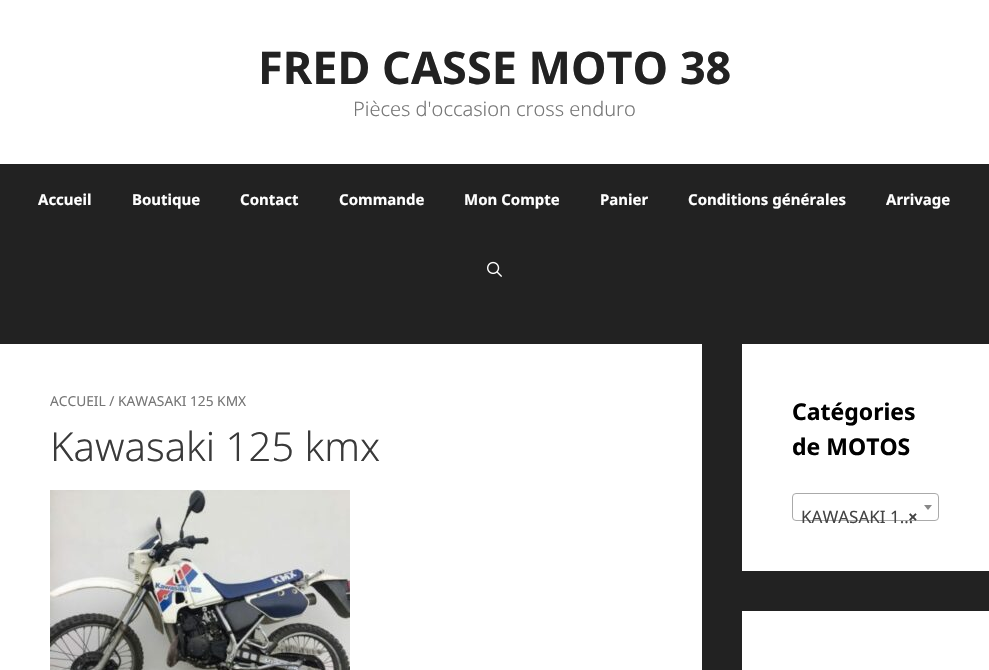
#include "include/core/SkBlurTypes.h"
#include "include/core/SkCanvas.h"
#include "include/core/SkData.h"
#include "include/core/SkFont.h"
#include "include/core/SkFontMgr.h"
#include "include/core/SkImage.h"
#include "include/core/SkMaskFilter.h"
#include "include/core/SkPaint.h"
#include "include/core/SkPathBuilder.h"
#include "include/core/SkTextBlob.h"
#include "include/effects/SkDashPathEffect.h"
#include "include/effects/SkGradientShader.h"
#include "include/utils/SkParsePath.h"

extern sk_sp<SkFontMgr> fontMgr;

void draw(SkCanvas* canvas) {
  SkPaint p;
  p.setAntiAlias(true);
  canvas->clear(SkColorSetRGB(34, 34, 34));
  p.setColor(SK_ColorWHITE);
  canvas->drawRect(SkRect::MakeLTRB(0, 0, 989, 164), p);
  canvas->drawImageRect(SkImages::DeferredFromEncodedData(SkData::MakeFromFileName("images/1.png")), SkRect::MakeLTRB(487, 261, 502, 277), SkSamplingOptions());
  canvas->drawRect(SkRect::MakeLTRB(0, 344, 702, 670), p);
  canvas->drawImageRect(SkImages::DeferredFromEncodedData(SkData::MakeFromFileName("images/2.png")), SkRect::MakeLTRB(50, 490, 350, 670), SkSamplingOptions());
  canvas->drawRect(SkRect::MakeLTRB(742, 344, 989, 571), p);
  p.setStyle(SkPaint::kStroke_Style);
  p.setStrokeWidth(1);
  p.setColor(SkColorSetRGB(170, 170, 170));
  canvas->drawRoundRect(SkRect::MakeLTRB(792.5f, 493.5f, 938.5f, 520.5f), 3.5f, 3.5f, p);
  p.setStyle(SkPaint::kFill_Style);
  p.setColor(SkColorSetRGB(136, 136, 136));
  canvas->drawPath(SkPathBuilder().moveTo(924, 505).lineTo(932, 505).lineTo(928, 510).close().detach(), p);
  p.setColor(SK_ColorWHITE);
  canvas->drawRect(SkRect::MakeLTRB(742, 611, 989, 670), p);
  SkFont font1(fontMgr->matchFamilyStyle("Noto Sans", SkFontStyle::Bold()), 45);
  font1.setSubpixel(true);
  p.setColor(SkColorSetRGB(34, 34, 34));
  canvas->drawString("FRED CASSE MOTO 38", 258, 84, font1, p);
  SkFont font2(fontMgr->matchFamilyStyle("Noto Sans", SkFontStyle(300, SkFontStyle::kNormal_Width, SkFontStyle::kUpright_Slant)), 20);
  font2.setSubpixel(true);
  p.setColor(SkColorSetRGB(118, 118, 118));
  canvas->drawString("Pièces d'occasion cross enduro", 353, 116, font2, p);
  SkFont font3(fontMgr->matchFamilyStyle("Noto Sans", SkFontStyle::Bold()), 15);
  font3.setSubpixel(true);
  p.setColor(SK_ColorWHITE);
  canvas->drawString("Accueil", 38, 205, font3, p);
  canvas->drawString("Boutique", 132, 205, font3, p);
  canvas->drawString("Contact", 240, 205, font3, p);
  canvas->drawString("Commande", 339, 205, font3, p);
  canvas->drawString("Mon Compte", 464, 205, font3, p);
  canvas->drawString("Panier", 600, 205, font3, p);
  canvas->drawString("Conditions générales", 688, 205, font3, p);
  canvas->drawString("Arrivage", 886, 205, font3, p);
  SkFont font4(fontMgr->matchFamilyStyle("Noto Sans", SkFontStyle::Normal()), 13.75f);
  font4.setSubpixel(true);
  p.setColor(SkColorSetRGB(118, 118, 118));
  canvas->drawString("ACCUEIL / KAWASAKI 125 KMX", 50, 406, font4, p);
  SkFont font5(fontMgr->matchFamilyStyle("Noto Sans", SkFontStyle(300, SkFontStyle::kNormal_Width, SkFontStyle::kUpright_Slant)), 40);
  font5.setSubpixel(true);
  p.setColor(SkColorSetRGB(58, 58, 58));
  canvas->drawString("Kawasaki 125 kmx", 50, 461, font5, p);
  SkFont font6(fontMgr->matchFamilyStyle("Noto Sans", SkFontStyle::Bold()), 23);
  font6.setSubpixel(true);
  p.setColor(SK_ColorBLACK);
  canvas->drawString("Catégories", 792, 420, font6, p);
  canvas->drawString("de MOTOS", 792, 455, font6, p);
  SkFont font7(fontMgr->matchFamilyStyle("Noto Sans", SkFontStyle::Normal()), 17);
  font7.setSubpixel(true);
  p.setColor(SkColorSetRGB(68, 68, 68));
  canvas->drawString("KAWASAKI 1…", 801, 523, font7, p);
  SkFont font8(fontMgr->matchFamilyStyle("Noto Sans", SkFontStyle::Bold()), 17);
  font8.setSubpixel(true);
  canvas->drawString("×", 908, 523, font8, p);
}
